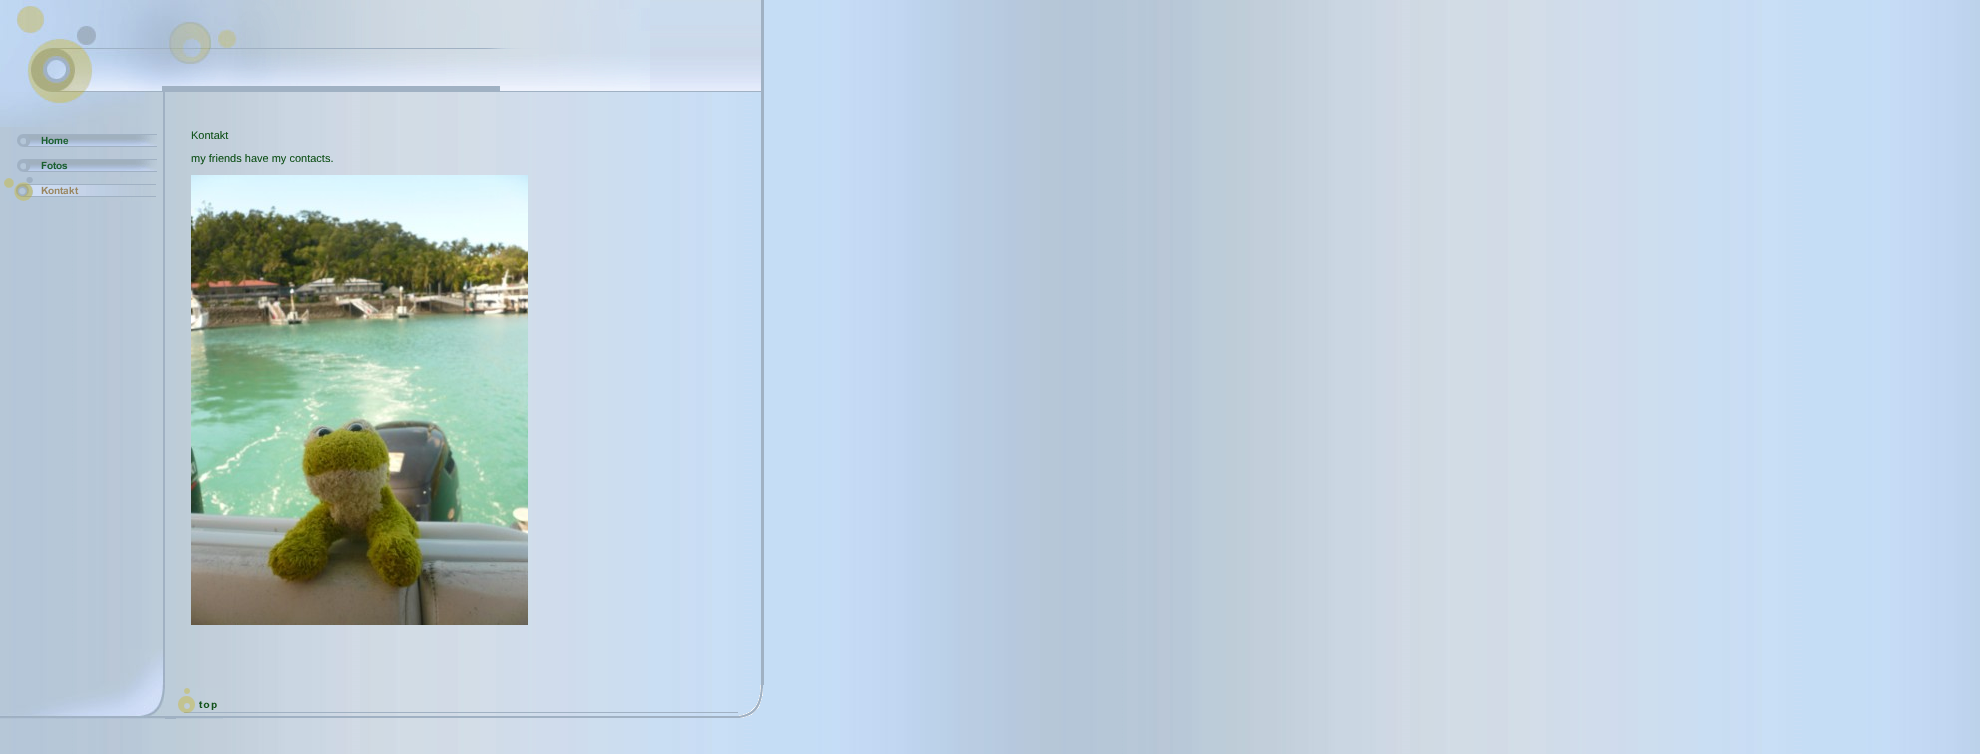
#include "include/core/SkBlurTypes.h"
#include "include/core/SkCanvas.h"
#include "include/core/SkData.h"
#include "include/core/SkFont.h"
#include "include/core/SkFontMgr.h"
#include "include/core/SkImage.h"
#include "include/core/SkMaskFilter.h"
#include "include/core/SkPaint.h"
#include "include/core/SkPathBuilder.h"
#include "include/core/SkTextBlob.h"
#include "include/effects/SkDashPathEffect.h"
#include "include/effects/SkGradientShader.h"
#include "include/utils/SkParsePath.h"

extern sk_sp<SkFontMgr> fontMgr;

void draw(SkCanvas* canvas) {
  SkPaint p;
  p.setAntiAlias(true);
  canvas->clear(SK_ColorWHITE);
  canvas->drawImageRect(SkImages::DeferredFromEncodedData(SkData::MakeFromFileName("images/1.png")), SkRect::MakeLTRB(0, 0, 1980, 754), SkSamplingOptions());
  canvas->drawImageRect(SkImages::DeferredFromEncodedData(SkData::MakeFromFileName("images/2.png")), SkRect::MakeLTRB(0, 0, 765, 744), SkSamplingOptions());
  canvas->drawImageRect(SkImages::DeferredFromEncodedData(SkData::MakeFromFileName("images/3.png")), SkRect::MakeLTRB(0, 0, 162, 92), SkSamplingOptions());
  canvas->drawImageRect(SkImages::DeferredFromEncodedData(SkData::MakeFromFileName("images/4.png")), SkRect::MakeLTRB(162, 0, 243, 68), SkSamplingOptions());
  canvas->drawImageRect(SkImages::DeferredFromEncodedData(SkData::MakeFromFileName("images/5.png")), SkRect::MakeLTRB(243, 0, 650, 68), SkSamplingOptions());
  p.setColor(SkColorSetRGB(160, 177, 195));
  canvas->drawRect(SkRect::MakeLTRB(162, 86, 437, 92), p);
  canvas->drawImageRect(SkImages::DeferredFromEncodedData(SkData::MakeFromFileName("images/6.png")), SkRect::MakeLTRB(162, 68, 437, 86), SkSamplingOptions());
  canvas->drawRect(SkRect::MakeLTRB(437, 91, 761, 92), p);
  canvas->drawImageRect(SkImages::DeferredFromEncodedData(SkData::MakeFromFileName("images/7.png")), SkRect::MakeLTRB(437, 68, 650, 91), SkSamplingOptions());
  canvas->drawImageRect(SkImages::DeferredFromEncodedData(SkData::MakeFromFileName("images/8.png")), SkRect::MakeLTRB(650, 0, 761, 91), SkSamplingOptions());
  canvas->drawImageRect(SkImages::DeferredFromEncodedData(SkData::MakeFromFileName("images/9.png")), SkRect::MakeLTRB(0, 92, 145, 127), SkSamplingOptions());
  canvas->drawImageRect(SkImages::DeferredFromEncodedData(SkData::MakeFromFileName("images/10.png")), SkRect::MakeLTRB(17, 134, 157, 147), SkSamplingOptions());
  canvas->drawImageRect(SkImages::DeferredFromEncodedData(SkData::MakeFromFileName("images/11.png")), SkRect::MakeLTRB(17, 159, 157, 172), SkSamplingOptions());
  canvas->drawImageRect(SkImages::DeferredFromEncodedData(SkData::MakeFromFileName("images/12.png")), SkRect::MakeLTRB(4, 177, 156, 201), SkSamplingOptions());
  canvas->drawRect(SkRect::MakeLTRB(163, 92, 165, 649), p);
  canvas->drawImageRect(SkImages::DeferredFromEncodedData(SkData::MakeFromFileName("images/13.png")), SkRect::MakeLTRB(191, 175, 528, 625), SkSamplingOptions());
  canvas->drawRect(SkRect::MakeLTRB(761, 0, 764, 685), p);
  canvas->drawImageRect(SkImages::DeferredFromEncodedData(SkData::MakeFromFileName("images/14.png")), SkRect::MakeLTRB(0, 649, 165, 719), SkSamplingOptions());
  canvas->drawRect(SkRect::MakeLTRB(165, 716, 176, 719), p);
  canvas->drawImageRect(SkImages::DeferredFromEncodedData(SkData::MakeFromFileName("images/15.png")), SkRect::MakeLTRB(176, 688, 224, 712), SkSamplingOptions());
  canvas->drawImageRect(SkImages::DeferredFromEncodedData(SkData::MakeFromFileName("images/16.png")), SkRect::MakeLTRB(176, 712, 224, 719), SkSamplingOptions());
  canvas->drawRect(SkRect::MakeLTRB(224, 712, 738, 713), p);
  canvas->drawRect(SkRect::MakeLTRB(224, 716, 738, 718), p);
  canvas->drawImageRect(SkImages::DeferredFromEncodedData(SkData::MakeFromFileName("images/17.png")), SkRect::MakeLTRB(738, 685, 761, 718), SkSamplingOptions());
  canvas->drawImageRect(SkImages::DeferredFromEncodedData(SkData::MakeFromFileName("images/18.png")), SkRect::MakeLTRB(761, 685, 763, 700), SkSamplingOptions());
  SkFont font1(fontMgr->matchFamilyStyle("Liberation Sans", SkFontStyle::Normal()), 11);
  font1.setSubpixel(true);
  p.setColor(SkColorSetRGB(17, 82, 26));
  canvas->drawString("Kontakt", 191, 139, font1, p);
  canvas->drawString("my friends have my contacts.", 191, 162, font1, p);
}
